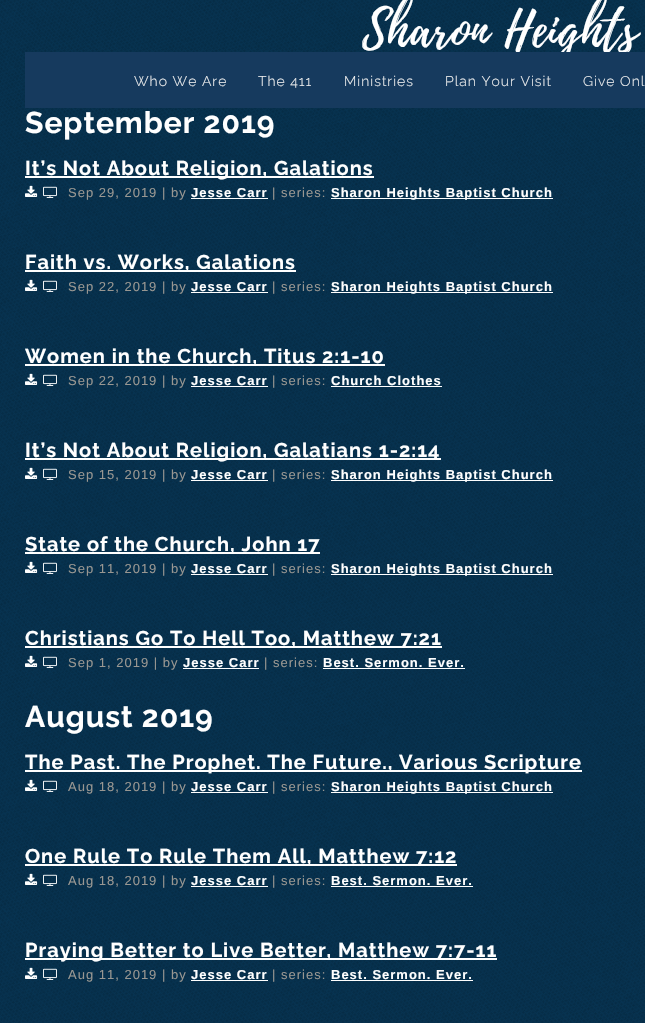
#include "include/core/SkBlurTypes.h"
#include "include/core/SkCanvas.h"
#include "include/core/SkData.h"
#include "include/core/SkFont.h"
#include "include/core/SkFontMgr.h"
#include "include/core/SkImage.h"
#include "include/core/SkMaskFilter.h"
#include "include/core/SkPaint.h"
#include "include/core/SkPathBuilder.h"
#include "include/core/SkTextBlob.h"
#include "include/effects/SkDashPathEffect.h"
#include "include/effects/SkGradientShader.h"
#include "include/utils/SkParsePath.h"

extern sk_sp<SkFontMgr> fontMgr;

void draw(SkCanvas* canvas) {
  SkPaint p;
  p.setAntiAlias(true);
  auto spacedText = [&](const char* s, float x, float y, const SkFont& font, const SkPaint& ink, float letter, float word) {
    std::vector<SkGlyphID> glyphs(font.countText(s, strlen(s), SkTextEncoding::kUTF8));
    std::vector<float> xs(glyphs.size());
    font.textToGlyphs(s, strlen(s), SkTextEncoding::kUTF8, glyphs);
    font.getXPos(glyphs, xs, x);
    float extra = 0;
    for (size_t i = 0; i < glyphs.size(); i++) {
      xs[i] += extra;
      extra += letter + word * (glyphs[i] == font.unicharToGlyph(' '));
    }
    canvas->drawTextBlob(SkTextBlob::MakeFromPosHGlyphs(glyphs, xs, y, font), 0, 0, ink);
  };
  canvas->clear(SkColorSetRGB(8, 61, 97));
  canvas->drawImageRect(SkImages::DeferredFromEncodedData(SkData::MakeFromFileName("images/1.png")), SkRect::MakeLTRB(0, 0, 645, 1023), SkSamplingOptions());
  p.setColor(SkColorSetRGB(8, 61, 97));
  canvas->drawRect(SkRect::MakeLTRB(25, 108, 645, 1023), p);
  canvas->drawImageRect(SkImages::DeferredFromEncodedData(SkData::MakeFromFileName("images/2.png")), SkRect::MakeLTRB(25, 108, 645, 1023), SkSamplingOptions());
  p.setColor(SK_ColorWHITE);
  canvas->drawRect(SkRect::MakeLTRB(25, 176, 374, 178), p);
  canvas->drawImageRect(SkImages::DeferredFromEncodedData(SkData::MakeFromFileName("images/3.png")), SkRect::MakeLTRB(25, 185, 38, 197), SkSamplingOptions());
  canvas->drawImageRect(SkImages::DeferredFromEncodedData(SkData::MakeFromFileName("images/4.png")), SkRect::MakeLTRB(43, 186, 57, 198), SkSamplingOptions());
  canvas->drawRect(SkRect::MakeLTRB(191, 198, 268, 199), p);
  canvas->drawRect(SkRect::MakeLTRB(331, 198, 553, 199), p);
  canvas->drawRect(SkRect::MakeLTRB(25, 270, 296, 272), p);
  canvas->drawImageRect(SkImages::DeferredFromEncodedData(SkData::MakeFromFileName("images/5.png")), SkRect::MakeLTRB(25, 279, 38, 291), SkSamplingOptions());
  canvas->drawImageRect(SkImages::DeferredFromEncodedData(SkData::MakeFromFileName("images/6.png")), SkRect::MakeLTRB(43, 280, 57, 292), SkSamplingOptions());
  canvas->drawRect(SkRect::MakeLTRB(191, 292, 268, 293), p);
  canvas->drawRect(SkRect::MakeLTRB(331, 292, 553, 293), p);
  canvas->drawRect(SkRect::MakeLTRB(25, 364, 385, 366), p);
  canvas->drawImageRect(SkImages::DeferredFromEncodedData(SkData::MakeFromFileName("images/7.png")), SkRect::MakeLTRB(25, 373, 38, 385), SkSamplingOptions());
  canvas->drawImageRect(SkImages::DeferredFromEncodedData(SkData::MakeFromFileName("images/8.png")), SkRect::MakeLTRB(43, 374, 57, 386), SkSamplingOptions());
  canvas->drawRect(SkRect::MakeLTRB(191, 386, 268, 387), p);
  canvas->drawRect(SkRect::MakeLTRB(331, 386, 442, 387), p);
  canvas->drawRect(SkRect::MakeLTRB(25, 458, 441, 460), p);
  canvas->drawImageRect(SkImages::DeferredFromEncodedData(SkData::MakeFromFileName("images/9.png")), SkRect::MakeLTRB(25, 467, 38, 479), SkSamplingOptions());
  canvas->drawImageRect(SkImages::DeferredFromEncodedData(SkData::MakeFromFileName("images/10.png")), SkRect::MakeLTRB(43, 468, 57, 480), SkSamplingOptions());
  canvas->drawRect(SkRect::MakeLTRB(191, 480, 268, 481), p);
  canvas->drawRect(SkRect::MakeLTRB(331, 480, 553, 481), p);
  canvas->drawRect(SkRect::MakeLTRB(25, 552, 320, 554), p);
  canvas->drawImageRect(SkImages::DeferredFromEncodedData(SkData::MakeFromFileName("images/11.png")), SkRect::MakeLTRB(25, 561, 38, 573), SkSamplingOptions());
  canvas->drawImageRect(SkImages::DeferredFromEncodedData(SkData::MakeFromFileName("images/12.png")), SkRect::MakeLTRB(43, 562, 57, 574), SkSamplingOptions());
  canvas->drawRect(SkRect::MakeLTRB(191, 574, 268, 575), p);
  canvas->drawRect(SkRect::MakeLTRB(331, 574, 553, 575), p);
  canvas->drawRect(SkRect::MakeLTRB(25, 646, 442, 648), p);
  canvas->drawImageRect(SkImages::DeferredFromEncodedData(SkData::MakeFromFileName("images/13.png")), SkRect::MakeLTRB(25, 655, 38, 667), SkSamplingOptions());
  canvas->drawImageRect(SkImages::DeferredFromEncodedData(SkData::MakeFromFileName("images/14.png")), SkRect::MakeLTRB(43, 656, 57, 668), SkSamplingOptions());
  canvas->drawRect(SkRect::MakeLTRB(183, 668, 259, 669), p);
  canvas->drawRect(SkRect::MakeLTRB(323, 668, 465, 669), p);
  canvas->drawRect(SkRect::MakeLTRB(25, 770, 582, 772), p);
  canvas->drawImageRect(SkImages::DeferredFromEncodedData(SkData::MakeFromFileName("images/15.png")), SkRect::MakeLTRB(25, 779, 38, 791), SkSamplingOptions());
  canvas->drawImageRect(SkImages::DeferredFromEncodedData(SkData::MakeFromFileName("images/16.png")), SkRect::MakeLTRB(43, 780, 57, 792), SkSamplingOptions());
  canvas->drawRect(SkRect::MakeLTRB(191, 792, 268, 793), p);
  canvas->drawRect(SkRect::MakeLTRB(331, 792, 553, 793), p);
  canvas->drawRect(SkRect::MakeLTRB(25, 864, 457, 866), p);
  canvas->drawImageRect(SkImages::DeferredFromEncodedData(SkData::MakeFromFileName("images/17.png")), SkRect::MakeLTRB(25, 873, 38, 885), SkSamplingOptions());
  canvas->drawImageRect(SkImages::DeferredFromEncodedData(SkData::MakeFromFileName("images/18.png")), SkRect::MakeLTRB(43, 874, 57, 886), SkSamplingOptions());
  canvas->drawRect(SkRect::MakeLTRB(191, 886, 268, 887), p);
  canvas->drawRect(SkRect::MakeLTRB(331, 886, 473, 887), p);
  canvas->drawRect(SkRect::MakeLTRB(25, 958, 497, 960), p);
  canvas->drawImageRect(SkImages::DeferredFromEncodedData(SkData::MakeFromFileName("images/19.png")), SkRect::MakeLTRB(25, 967, 38, 979), SkSamplingOptions());
  canvas->drawImageRect(SkImages::DeferredFromEncodedData(SkData::MakeFromFileName("images/20.png")), SkRect::MakeLTRB(43, 968, 57, 980), SkSamplingOptions());
  canvas->drawRect(SkRect::MakeLTRB(191, 980, 268, 981), p);
  canvas->drawRect(SkRect::MakeLTRB(331, 980, 473, 981), p);
  SkFont font1(fontMgr->matchFamilyStyle("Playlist", SkFontStyle::Normal()), 50);
  font1.setSubpixel(true);
  spacedText("Sharon Heights", 362, 45, font1, p, 1, 0);
  p.setColor(SkColorSetRGB(22, 58, 94));
  canvas->drawRect(SkRect::MakeLTRB(25, 52, 645, 108), p);
  SkFont font2(fontMgr->matchFamilyStyle("Raleway", SkFontStyle(300, SkFontStyle::kNormal_Width, SkFontStyle::kUpright_Slant)), 14);
  font2.setSubpixel(true);
  p.setColor(SkColorSetRGB(240, 240, 240));
  spacedText("Who We Are", 134, 86, font2, p, 1, 0);
  spacedText("The 411", 258, 86, font2, p, 1, 0);
  spacedText("Ministries", 344, 86, font2, p, 1, 0);
  spacedText("Plan Your Visit", 445, 86, font2, p, 1, 0);
  spacedText("Give Onl", 583, 86, font2, p, 1, 0);
  SkFont font3(fontMgr->matchFamilyStyle("Raleway", SkFontStyle::Bold()), 30);
  font3.setSubpixel(true);
  p.setColor(SK_ColorWHITE);
  spacedText("September 2019", 25, 133, font3, p, 1, 0);
  SkFont font4(fontMgr->matchFamilyStyle("Raleway", SkFontStyle::Bold()), 20);
  font4.setSubpixel(true);
  spacedText("It’s Not About Religion, Galations", 25, 175, font4, p, 1, 0);
  SkFont font5(fontMgr->matchFamilyStyle("Liberation Sans", SkFontStyle::Normal()), 13);
  font5.setSubpixel(true);
  p.setColor(SkColorSetRGB(153, 151, 146));
  spacedText("Sep 29, 2019 | by", 68, 197, font5, p, 1, 0);
  SkFont font6(fontMgr->matchFamilyStyle("Liberation Sans", SkFontStyle::Bold()), 13);
  font6.setSubpixel(true);
  p.setColor(SK_ColorWHITE);
  spacedText("Jesse Carr", 191, 197, font6, p, 1, 0);
  p.setColor(SkColorSetRGB(153, 151, 146));
  spacedText("| series:", 272, 197, font5, p, 1, 0);
  p.setColor(SK_ColorWHITE);
  spacedText("Sharon Heights Baptist Church", 331, 197, font6, p, 1, 0);
  spacedText("Faith vs. Works, Galations", 25, 269, font4, p, 1, 0);
  p.setColor(SkColorSetRGB(153, 151, 146));
  spacedText("Sep 22, 2019 | by", 68, 291, font5, p, 1, 0);
  p.setColor(SK_ColorWHITE);
  spacedText("Jesse Carr", 191, 291, font6, p, 1, 0);
  p.setColor(SkColorSetRGB(153, 151, 146));
  spacedText("| series:", 272, 291, font5, p, 1, 0);
  p.setColor(SK_ColorWHITE);
  spacedText("Sharon Heights Baptist Church", 331, 291, font6, p, 1, 0);
  spacedText("Women in the Church, Titus 2:1-10", 25, 363, font4, p, 1, 0);
  p.setColor(SkColorSetRGB(153, 151, 146));
  spacedText("Sep 22, 2019 | by", 68, 385, font5, p, 1, 0);
  p.setColor(SK_ColorWHITE);
  spacedText("Jesse Carr", 191, 385, font6, p, 1, 0);
  p.setColor(SkColorSetRGB(153, 151, 146));
  spacedText("| series:", 272, 385, font5, p, 1, 0);
  p.setColor(SK_ColorWHITE);
  spacedText("Church Clothes", 331, 385, font6, p, 1, 0);
  spacedText("It’s Not About Religion, Galatians 1-2:14", 25, 457, font4, p, 1, 0);
  p.setColor(SkColorSetRGB(153, 151, 146));
  spacedText("Sep 15, 2019 | by", 68, 479, font5, p, 1, 0);
  p.setColor(SK_ColorWHITE);
  spacedText("Jesse Carr", 191, 479, font6, p, 1, 0);
  p.setColor(SkColorSetRGB(153, 151, 146));
  spacedText("| series:", 272, 479, font5, p, 1, 0);
  p.setColor(SK_ColorWHITE);
  spacedText("Sharon Heights Baptist Church", 331, 479, font6, p, 1, 0);
  spacedText("State of the Church, John 17", 25, 551, font4, p, 1, 0);
  p.setColor(SkColorSetRGB(153, 151, 146));
  spacedText("Sep 11, 2019 | by", 68, 573, font5, p, 1, 0);
  p.setColor(SK_ColorWHITE);
  spacedText("Jesse Carr", 191, 573, font6, p, 1, 0);
  p.setColor(SkColorSetRGB(153, 151, 146));
  spacedText("| series:", 272, 573, font5, p, 1, 0);
  p.setColor(SK_ColorWHITE);
  spacedText("Sharon Heights Baptist Church", 331, 573, font6, p, 1, 0);
  spacedText("Christians Go To Hell Too, Matthew 7:21", 25, 645, font4, p, 1, 0);
  p.setColor(SkColorSetRGB(153, 151, 146));
  spacedText("Sep 1, 2019 | by", 68, 667, font5, p, 1, 0);
  p.setColor(SK_ColorWHITE);
  spacedText("Jesse Carr", 183, 667, font6, p, 1, 0);
  p.setColor(SkColorSetRGB(153, 151, 146));
  spacedText("| series:", 264, 667, font5, p, 1, 0);
  p.setColor(SK_ColorWHITE);
  spacedText("Best. Sermon. Ever.", 323, 667, font6, p, 1, 0);
  spacedText("August 2019", 25, 727, font3, p, 1, 0);
  spacedText("The Past. The Prophet. The Future., Various Scripture", 25, 769, font4, p, 1, 0);
  p.setColor(SkColorSetRGB(153, 151, 146));
  spacedText("Aug 18, 2019 | by", 68, 791, font5, p, 1, 0);
  p.setColor(SK_ColorWHITE);
  spacedText("Jesse Carr", 191, 791, font6, p, 1, 0);
  p.setColor(SkColorSetRGB(153, 151, 146));
  spacedText("| series:", 272, 791, font5, p, 1, 0);
  p.setColor(SK_ColorWHITE);
  spacedText("Sharon Heights Baptist Church", 331, 791, font6, p, 1, 0);
  spacedText("One Rule To Rule Them All, Matthew 7:12", 25, 863, font4, p, 1, 0);
  p.setColor(SkColorSetRGB(153, 151, 146));
  spacedText("Aug 18, 2019 | by", 68, 885, font5, p, 1, 0);
  p.setColor(SK_ColorWHITE);
  spacedText("Jesse Carr", 191, 885, font6, p, 1, 0);
  p.setColor(SkColorSetRGB(153, 151, 146));
  spacedText("| series:", 272, 885, font5, p, 1, 0);
  p.setColor(SK_ColorWHITE);
  spacedText("Best. Sermon. Ever.", 331, 885, font6, p, 1, 0);
  spacedText("Praying Better to Live Better, Matthew 7:7-11", 25, 957, font4, p, 1, 0);
  p.setColor(SkColorSetRGB(153, 151, 146));
  spacedText("Aug 11, 2019 | by", 68, 979, font5, p, 1, 0);
  p.setColor(SK_ColorWHITE);
  spacedText("Jesse Carr", 191, 979, font6, p, 1, 0);
  p.setColor(SkColorSetRGB(153, 151, 146));
  spacedText("| series:", 272, 979, font5, p, 1, 0);
  p.setColor(SK_ColorWHITE);
  spacedText("Best. Sermon. Ever.", 331, 979, font6, p, 1, 0);
}
